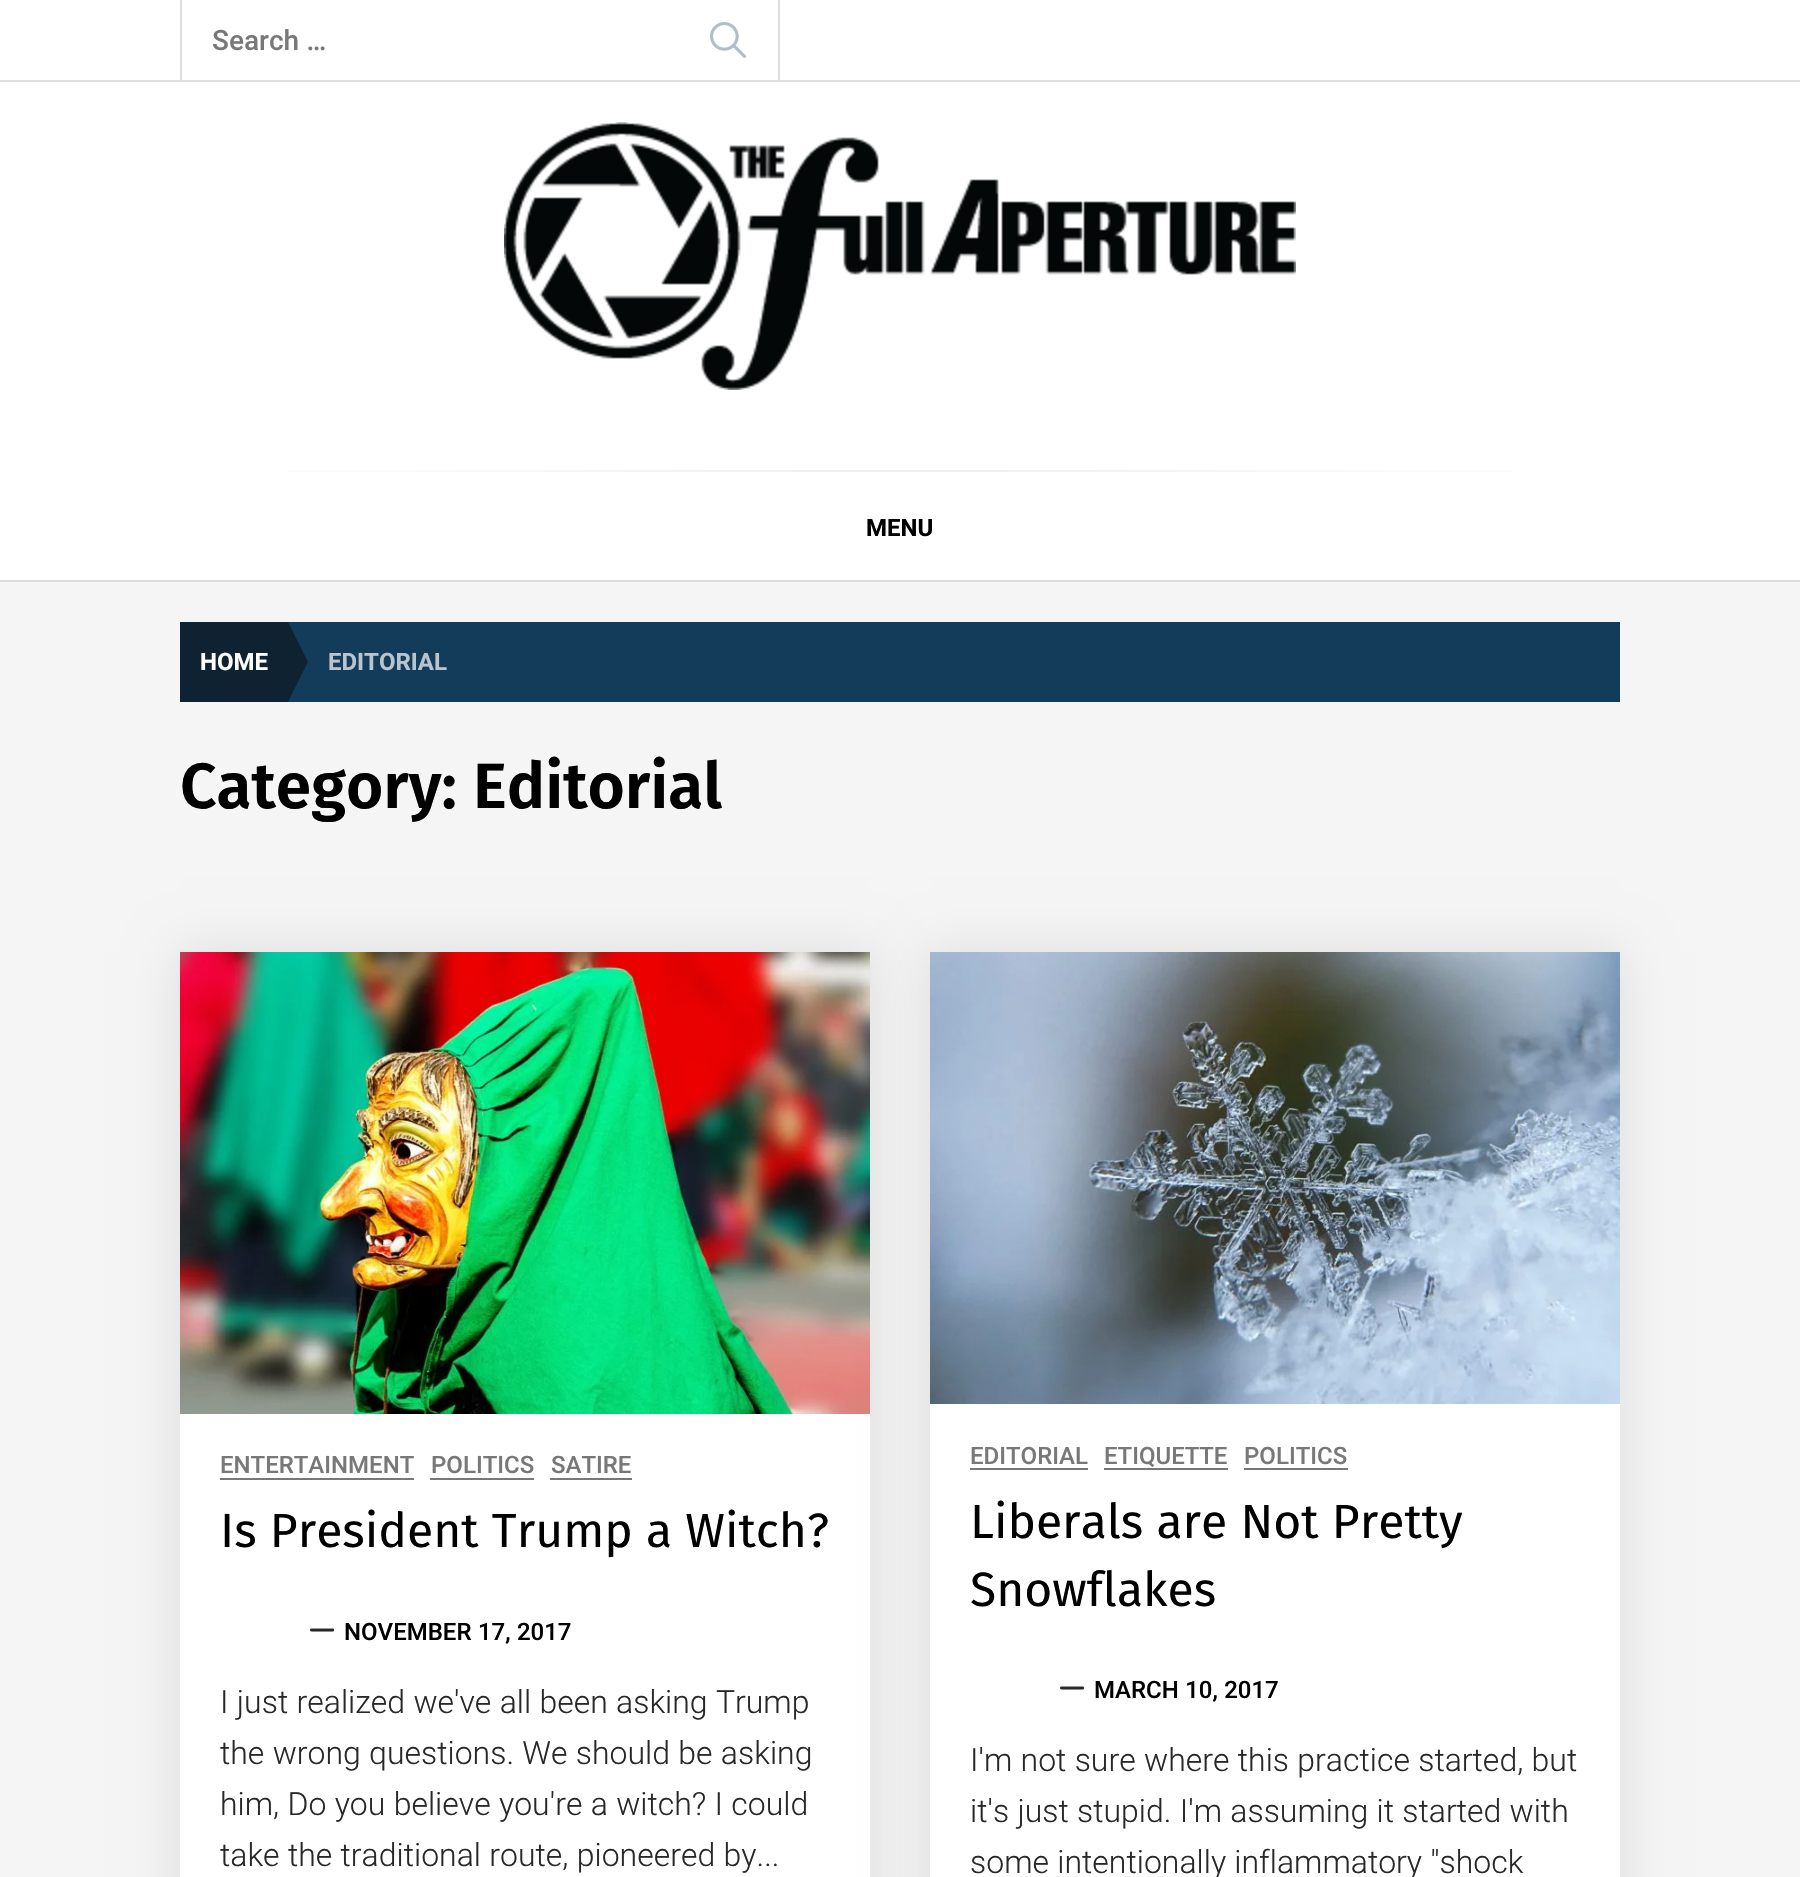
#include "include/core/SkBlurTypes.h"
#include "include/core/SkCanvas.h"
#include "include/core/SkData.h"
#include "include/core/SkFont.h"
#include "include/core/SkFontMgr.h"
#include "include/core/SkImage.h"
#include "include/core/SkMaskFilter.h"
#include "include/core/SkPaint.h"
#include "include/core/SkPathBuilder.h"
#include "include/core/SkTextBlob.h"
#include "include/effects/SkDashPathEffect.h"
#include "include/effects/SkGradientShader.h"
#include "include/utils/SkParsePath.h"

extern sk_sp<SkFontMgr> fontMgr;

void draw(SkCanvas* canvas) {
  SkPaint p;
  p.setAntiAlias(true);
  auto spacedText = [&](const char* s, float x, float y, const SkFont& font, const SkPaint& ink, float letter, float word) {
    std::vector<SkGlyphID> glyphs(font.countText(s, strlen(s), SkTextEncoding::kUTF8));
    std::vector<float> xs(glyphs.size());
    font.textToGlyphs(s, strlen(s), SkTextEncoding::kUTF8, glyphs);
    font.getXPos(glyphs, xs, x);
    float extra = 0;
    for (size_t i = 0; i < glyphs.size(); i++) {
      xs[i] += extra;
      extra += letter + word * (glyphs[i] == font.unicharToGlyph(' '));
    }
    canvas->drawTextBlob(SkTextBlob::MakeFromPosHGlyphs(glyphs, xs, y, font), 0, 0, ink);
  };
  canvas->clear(SkColorSetRGB(245, 245, 245));
  p.setColor(SK_ColorWHITE);
  canvas->drawRect(SkRect::MakeLTRB(0, 0, 1800, 580), p);
  p.setColor(SkColorSetRGB(222, 222, 222));
  canvas->drawRect(SkRect::MakeLTRB(0, 80, 1800, 82), p);
  canvas->drawRect(SkRect::MakeLTRB(778, 0, 780, 80), p);
  canvas->drawRect(SkRect::MakeLTRB(180, 0, 182, 80), p);
  canvas->drawImageRect(SkImages::DeferredFromEncodedData(SkData::MakeFromFileName("images/1.png")), SkRect::MakeLTRB(710, 22, 747, 58), SkSamplingOptions());
  canvas->drawImageRect(SkImages::DeferredFromEncodedData(SkData::MakeFromFileName("images/2.png")), SkRect::MakeLTRB(504, 122, 1296, 390), SkSamplingOptions());
  canvas->drawRect(SkRect::MakeLTRB(0, 580, 1800, 582), p);
  {
    const SkColor colors[] = {SK_ColorWHITE, SkColorSetRGB(238, 238, 238), SK_ColorWHITE};
    const float stops[] = {0, 0.5f, 1};
    const SkPoint ends[] = {{1620, 471}, {180, 471}};
    p.setShader(SkGradientShader::MakeLinear(ends, colors, stops, 3, SkTileMode::kClamp));
    p.setAlpha(255);
  }
  canvas->drawRect(SkRect::MakeLTRB(286, 470, 1514, 472), p);
  p.setShader(nullptr);
  p.setColor(SkColorSetRGB(19, 59, 90));
  canvas->drawRect(SkRect::MakeLTRB(288, 622, 1620, 702), p);
  p.setColor(SkColorSetRGB(14, 34, 49));
  canvas->drawRect(SkRect::MakeLTRB(180, 622, 288, 702), p);
  canvas->drawPath(SkPathBuilder().moveTo(288, 702).lineTo(288, 622).lineTo(308, 662).close().detach(), p);
  p.setColor(SkColorSetARGB(26, 0, 0, 0));
  p.setMaskFilter(SkMaskFilter::MakeBlur(kNormal_SkBlurStyle, 25));
  canvas->drawRect(SkRect::MakeLTRB(180, 952, 870, 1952), p);
  p.setMaskFilter(nullptr);
  p.setColor(SK_ColorWHITE);
  canvas->drawRect(SkRect::MakeLTRB(180, 1414, 870, 1877), p);
  canvas->drawImageRect(SkImages::DeferredFromEncodedData(SkData::MakeFromFileName("images/3.png")), SkRect::MakeLTRB(180, 952, 870, 1414), SkSamplingOptions());
  p.setColor(SkColorSetRGB(120, 120, 120));
  canvas->drawRect(SkRect::MakeLTRB(220, 1478, 414, 1480), p);
  canvas->drawRect(SkRect::MakeLTRB(430, 1478, 534, 1480), p);
  canvas->drawRect(SkRect::MakeLTRB(550, 1478, 632, 1480), p);
  canvas->drawImageRect(SkImages::DeferredFromEncodedData(SkData::MakeFromFileName("images/4.png")), SkRect::MakeLTRB(310, 1628, 335, 1632), SkSamplingOptions());
  p.setColor(SkColorSetARGB(26, 0, 0, 0));
  p.setMaskFilter(SkMaskFilter::MakeBlur(kNormal_SkBlurStyle, 25));
  canvas->drawRect(SkRect::MakeLTRB(930, 952, 1620, 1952), p);
  p.setMaskFilter(nullptr);
  p.setColor(SK_ColorWHITE);
  canvas->drawRect(SkRect::MakeLTRB(930, 1404, 1620, 1877), p);
  canvas->drawImageRect(SkImages::DeferredFromEncodedData(SkData::MakeFromFileName("images/5.png")), SkRect::MakeLTRB(930, 952, 1620, 1404), SkSamplingOptions());
  p.setColor(SkColorSetRGB(120, 120, 120));
  canvas->drawRect(SkRect::MakeLTRB(970, 1468, 1088, 1470), p);
  canvas->drawRect(SkRect::MakeLTRB(1104, 1468, 1228, 1470), p);
  canvas->drawRect(SkRect::MakeLTRB(1244, 1468, 1348, 1470), p);
  canvas->drawImageRect(SkImages::DeferredFromEncodedData(SkData::MakeFromFileName("images/4.png")), SkRect::MakeLTRB(1060, 1686, 1085, 1690), SkSamplingOptions());
  SkFont font1(fontMgr->matchFamilyStyle("Roboto", SkFontStyle(500, SkFontStyle::kNormal_Width, SkFontStyle::kUpright_Slant)), 28);
  font1.setSubpixel(true);
  spacedText("Search …", 212, 50, font1, p, 0, 0.5f);
  SkFont font2(fontMgr->matchFamilyStyle("Roboto", SkFontStyle::Bold()), 24);
  font2.setSubpixel(true);
  p.setColor(SK_ColorBLACK);
  canvas->drawString("MENU", 866, 536, font2, p);
  p.setColor(SK_ColorWHITE);
  canvas->drawString("HOME", 200, 670, font2, p);
  p.setColor(SkColorSetRGB(184, 196, 206));
  canvas->drawString("EDITORIAL", 328, 670, font2, p);
  SkFont font3(fontMgr->matchFamilyStyle("Fira Sans", SkFontStyle(600, SkFontStyle::kNormal_Width, SkFontStyle::kUpright_Slant)), 64);
  font3.setSubpixel(true);
  p.setColor(SK_ColorBLACK);
  canvas->drawString("Category:", 180, 808, font3, p);
  canvas->drawString("Editorial", 473, 808, font3, p);
  SkFont font4(fontMgr->matchFamilyStyle("Roboto", SkFontStyle(500, SkFontStyle::kNormal_Width, SkFontStyle::kUpright_Slant)), 24);
  font4.setSubpixel(true);
  p.setColor(SkColorSetRGB(120, 120, 120));
  canvas->drawString("ENTERTAINMENT", 220, 1473, font4, p);
  canvas->drawString("POLITICS", 431, 1473, font4, p);
  canvas->drawString("SATIRE", 551, 1473, font4, p);
  SkFont font5(fontMgr->matchFamilyStyle("Fira Sans", SkFontStyle::Normal()), 48);
  font5.setSubpixel(true);
  p.setColor(SK_ColorBLACK);
  spacedText("Is President Trump a Witch?", 220, 1547, font5, p, 0, 0.5f);
  spacedText("NOVEMBER 17, 2017", 344, 1640, font4, p, 0, 0.5f);
  SkFont font6(fontMgr->matchFamilyStyle("Roboto", SkFontStyle(300, SkFontStyle::kNormal_Width, SkFontStyle::kUpright_Slant)), 32);
  font6.setSubpixel(true);
  p.setColor(SkColorSetRGB(40, 40, 40));
  spacedText("I just realized we've all been asking Trump", 220, 1713, font6, p, 0, 0.5f);
  spacedText("the wrong questions. We should be asking", 220, 1764, font6, p, 0, 0.5f);
  spacedText("him, Do you believe you're a witch? I could", 220, 1815, font6, p, 0, 0.5f);
  spacedText("take the traditional route, pioneered by...", 220, 1866, font6, p, 0, 0.5f);
  p.setColor(SkColorSetRGB(120, 120, 120));
  canvas->drawString("EDITORIAL", 970, 1464, font4, p);
  canvas->drawString("ETIQUETTE", 1104, 1464, font4, p);
  canvas->drawString("POLITICS", 1244, 1464, font4, p);
  p.setColor(SK_ColorBLACK);
  spacedText("Liberals are Not Pretty", 970, 1538, font5, p, 0, 0.5f);
  canvas->drawString("Snowflakes", 970, 1606, font5, p);
  spacedText("MARCH 10, 2017", 1094, 1698, font4, p, 0, 0.5f);
  p.setColor(SkColorSetRGB(40, 40, 40));
  spacedText("I'm not sure where this practice started, but", 970, 1771, font6, p, 0, 0.5f);
  spacedText("it's just stupid. I'm assuming it started with", 970, 1822, font6, p, 0, 0.5f);
  spacedText("some intentionally inflammatory \"shock", 970, 1873, font6, p, 0, 0.5f);
}
